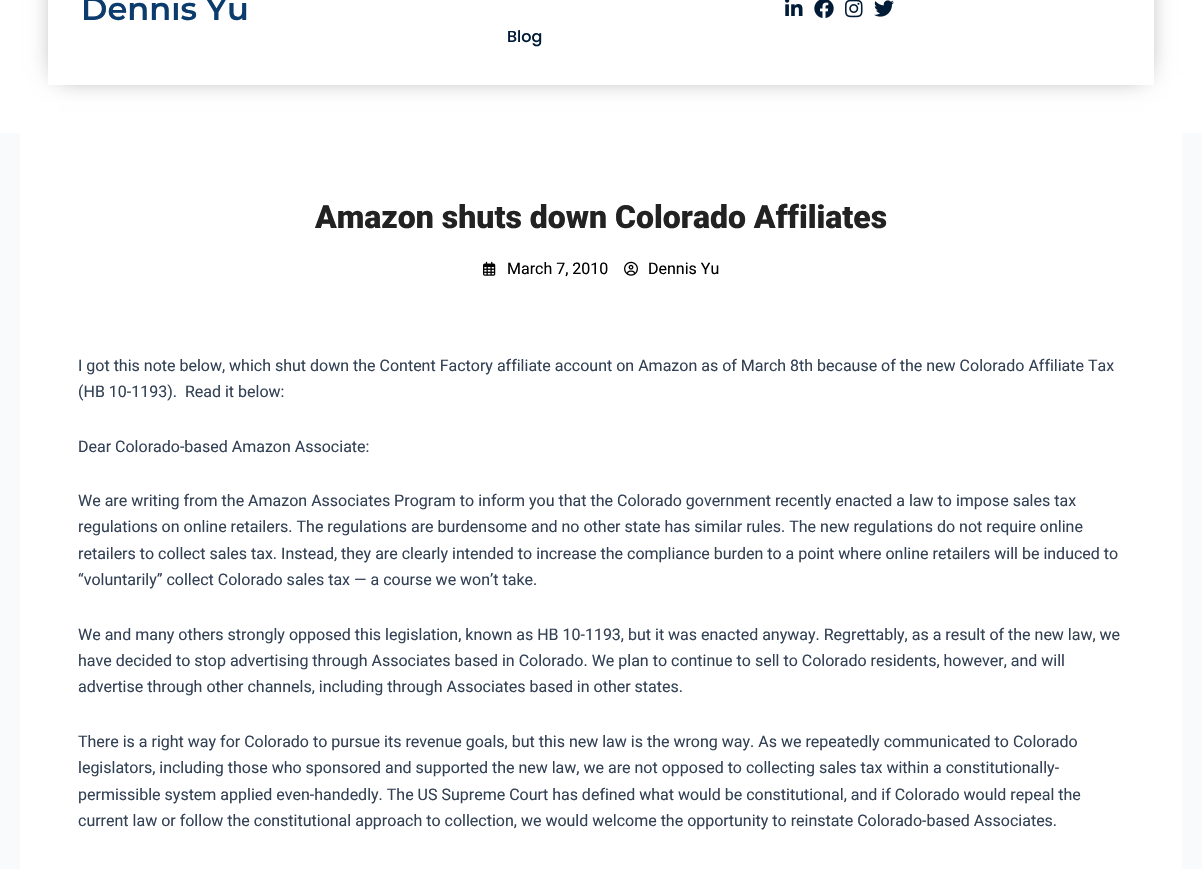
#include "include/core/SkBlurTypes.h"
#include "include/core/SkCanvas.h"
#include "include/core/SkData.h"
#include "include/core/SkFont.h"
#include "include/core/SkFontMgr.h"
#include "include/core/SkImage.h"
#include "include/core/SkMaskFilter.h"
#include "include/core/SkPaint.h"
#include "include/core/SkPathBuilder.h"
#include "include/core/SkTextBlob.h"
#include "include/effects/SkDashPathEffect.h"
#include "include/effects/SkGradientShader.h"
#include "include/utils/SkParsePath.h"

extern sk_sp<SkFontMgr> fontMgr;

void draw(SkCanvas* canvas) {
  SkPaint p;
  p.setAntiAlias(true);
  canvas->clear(SkColorSetRGB(249, 250, 251));
  p.setColor(SK_ColorWHITE);
  canvas->drawRect(SkRect::MakeLTRB(0, 0, 1202, 133), p);
  canvas->save();
  canvas->clipPath(SkPathBuilder(SkPathFillType::kEvenOdd).moveTo(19, 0).lineTo(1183, 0).lineTo(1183, 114).lineTo(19, 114).close().moveTo(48, -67).lineTo(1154, -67).lineTo(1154, 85).lineTo(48, 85).close().detach(), true);
  p.setColor(SkColorSetARGB(128, 0, 0, 0));
  p.setMaskFilter(SkMaskFilter::MakeBlur(kNormal_SkBlurStyle, 12.5f));
  canvas->drawRect(SkRect::MakeLTRB(58, -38, 1144, 75), p);
  p.setMaskFilter(nullptr);
  canvas->restore();
  canvas->drawImageRect(SkImages::DeferredFromEncodedData(SkData::MakeFromFileName("images/1.png")), SkRect::MakeLTRB(785, 0, 803, 16), SkSamplingOptions());
  canvas->drawImageRect(SkImages::DeferredFromEncodedData(SkData::MakeFromFileName("images/2.png")), SkRect::MakeLTRB(814, 0, 834, 18), SkSamplingOptions());
  canvas->drawImageRect(SkImages::DeferredFromEncodedData(SkData::MakeFromFileName("images/3.png")), SkRect::MakeLTRB(845, 0, 863, 18), SkSamplingOptions());
  canvas->drawImageRect(SkImages::DeferredFromEncodedData(SkData::MakeFromFileName("images/4.png")), SkRect::MakeLTRB(874, 0, 894, 17), SkSamplingOptions());
  p.setColor(SK_ColorWHITE);
  canvas->drawRect(SkRect::MakeLTRB(20, 133, 1182, 869), p);
  canvas->drawImageRect(SkImages::DeferredFromEncodedData(SkData::MakeFromFileName("images/5.png")), SkRect::MakeLTRB(483, 261, 496, 276), SkSamplingOptions());
  canvas->drawImageRect(SkImages::DeferredFromEncodedData(SkData::MakeFromFileName("images/6.png")), SkRect::MakeLTRB(624, 261, 638, 276), SkSamplingOptions());
  SkFont font1(fontMgr->matchFamilyStyle("Montserrat", SkFontStyle(600, SkFontStyle::kNormal_Width, SkFontStyle::kUpright_Slant)), 32);
  font1.setSubpixel(true);
  p.setColor(SkColorSetRGB(12, 60, 109));
  canvas->drawString("Dennis Yu", 81, 20, font1, p);
  SkFont font2(fontMgr->matchFamilyStyle("Poppins", SkFontStyle(500, SkFontStyle::kNormal_Width, SkFontStyle::kUpright_Slant)), 16);
  font2.setSubpixel(true);
  p.setColor(SkColorSetRGB(0, 27, 54));
  canvas->drawString("Blog", 507, 42, font2, p);
  SkFont font3(fontMgr->matchFamilyStyle("Roboto", SkFontStyle(900, SkFontStyle::kNormal_Width, SkFontStyle::kUpright_Slant)), 32);
  font3.setSubpixel(true);
  p.setColor(SkColorSetRGB(34, 34, 34));
  canvas->drawString("Amazon shuts down Colorado Affiliates", 315, 228, font3, p);
  SkFont font4(fontMgr->matchFamilyStyle("Roboto", SkFontStyle::Normal()), 16);
  font4.setSubpixel(true);
  p.setColor(SK_ColorBLACK);
  canvas->drawString("March 7, 2010", 507, 274, font4, p);
  canvas->drawString("Dennis Yu", 648, 274, font4, p);
  p.setColor(SkColorSetRGB(51, 65, 85));
  canvas->drawString("I got this note below, which shut down the Content Factory affiliate account on Amazon as of March 8th because of the new Colorado Affiliate Tax", 78, 371, font4, p);
  canvas->drawString("(HB 10-1193).  Read it below:", 78, 397, font4, p);
  canvas->drawString("Dear Colorado-based Amazon Associate:", 78, 452, font4, p);
  canvas->drawString("We are writing from the Amazon Associates Program to inform you that the Colorado government recently enacted a law to impose sales tax", 78, 506, font4, p);
  canvas->drawString("regulations on online retailers. The regulations are burdensome and no other state has similar rules. The new regulations do not require online", 78, 532, font4, p);
  canvas->drawString("retailers to collect sales tax. Instead, they are clearly intended to increase the compliance burden to a point where online retailers will be induced to", 78, 559, font4, p);
  canvas->drawString("“voluntarily” collect Colorado sales tax — a course we won’t take.", 78, 585, font4, p);
  canvas->drawString("We and many others strongly opposed this legislation, known as HB 10-1193, but it was enacted anyway. Regrettably, as a result of the new law, we", 78, 640, font4, p);
  canvas->drawString("have decided to stop advertising through Associates based in Colorado. We plan to continue to sell to Colorado residents, however, and will", 78, 666, font4, p);
  canvas->drawString("advertise through other channels, including through Associates based in other states.", 78, 692, font4, p);
  canvas->drawString("There is a right way for Colorado to pursue its revenue goals, but this new law is the wrong way. As we repeatedly communicated to Colorado", 78, 747, font4, p);
  canvas->drawString("legislators, including those who sponsored and supported the new law, we are not opposed to collecting sales tax within a constitutionally-", 78, 773, font4, p);
  canvas->drawString("permissible system applied even-handedly. The US Supreme Court has defined what would be constitutional, and if Colorado would repeal the", 78, 800, font4, p);
  canvas->drawString("current law or follow the constitutional approach to collection, we would welcome the opportunity to reinstate Colorado-based Associates.", 78, 826, font4, p);
}
